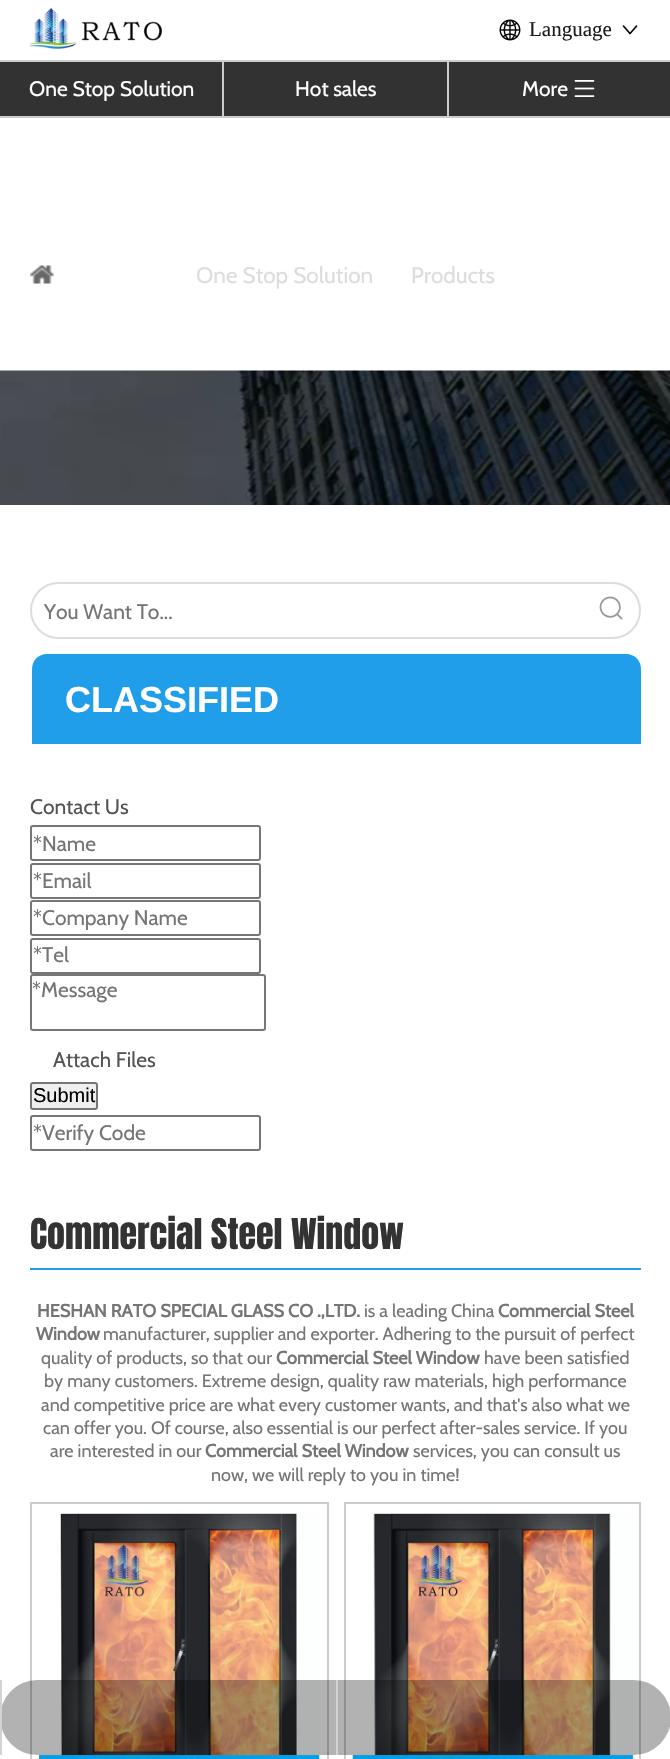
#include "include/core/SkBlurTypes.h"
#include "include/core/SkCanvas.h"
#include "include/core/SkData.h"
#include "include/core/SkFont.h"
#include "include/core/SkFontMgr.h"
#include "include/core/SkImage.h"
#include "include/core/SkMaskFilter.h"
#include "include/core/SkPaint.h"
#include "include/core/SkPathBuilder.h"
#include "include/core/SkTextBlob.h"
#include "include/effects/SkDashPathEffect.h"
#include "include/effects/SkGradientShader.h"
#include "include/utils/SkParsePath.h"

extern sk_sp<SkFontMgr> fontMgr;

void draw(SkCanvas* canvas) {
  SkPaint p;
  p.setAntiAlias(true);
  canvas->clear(SK_ColorWHITE);
  canvas->drawImageRect(SkImages::DeferredFromEncodedData(SkData::MakeFromFileName("images/1.png")), SkRect::MakeLTRB(30, 8, 162, 50), SkSamplingOptions());
  canvas->drawImageRect(SkImages::DeferredFromEncodedData(SkData::MakeFromFileName("images/2.png")), SkRect::MakeLTRB(499, 19, 521, 41), SkSamplingOptions());
  canvas->drawImageRect(SkImages::DeferredFromEncodedData(SkData::MakeFromFileName("images/3.png")), SkRect::MakeLTRB(622, 25, 638, 35), SkSamplingOptions());
  p.setColor(SkColorSetRGB(50, 50, 50));
  canvas->drawRect(SkRect::MakeLTRB(0, 62, 670, 116), p);
  p.setColor(SkColorSetRGB(204, 204, 204));
  canvas->drawRect(SkRect::MakeLTRB(0, 60, 670, 62), p);
  canvas->drawRect(SkRect::MakeLTRB(0, 116, 670, 118), p);
  canvas->drawRect(SkRect::MakeLTRB(222, 62, 224, 116), p);
  canvas->drawRect(SkRect::MakeLTRB(447, 62, 449, 116), p);
  canvas->drawImageRect(SkImages::DeferredFromEncodedData(SkData::MakeFromFileName("images/4.png")), SkRect::MakeLTRB(574, 80, 595, 97), SkSamplingOptions());
  canvas->drawImageRect(SkImages::DeferredFromEncodedData(SkData::MakeFromFileName("images/5.png")), SkRect::MakeLTRB(0, 370, 670, 505), SkSamplingOptions());
  canvas->drawImageRect(SkImages::DeferredFromEncodedData(SkData::MakeFromFileName("images/6.png")), SkRect::MakeLTRB(30, 265, 54, 284), SkSamplingOptions());
  p.setStyle(SkPaint::kStroke_Style);
  p.setStrokeWidth(2);
  p.setColor(SkColorSetRGB(221, 221, 221));
  canvas->drawRoundRect(SkRect::MakeLTRB(31, 583, 640, 638), 27.5f, 27.5f, p);
  canvas->drawImageRect(SkImages::DeferredFromEncodedData(SkData::MakeFromFileName("images/7.png")), SkRect::MakeLTRB(599, 596, 623, 620), SkSamplingOptions());
  p.setStyle(SkPaint::kFill_Style);
  p.setColor(SkColorSetRGB(32, 158, 234));
  canvas->drawPath(SkPathBuilder().moveTo(47, 654).lineTo(626, 654).cubicTo(634.5f, 654, 641, 660.5f, 641, 669).lineTo(641, 744).lineTo(32, 744).lineTo(32, 669).cubicTo(32, 660.5f, 38.5f, 654, 47, 654).close().detach(), p);
  p.setStyle(SkPaint::kStroke_Style);
  p.setColor(SkColorSetRGB(118, 118, 118));
  canvas->drawRoundRect(SkRect::MakeLTRB(31, 826, 260, 860), 2, 2, p);
  canvas->drawRoundRect(SkRect::MakeLTRB(31, 864, 260, 898), 2, 2, p);
  canvas->drawRoundRect(SkRect::MakeLTRB(31, 901, 260, 935), 2, 2, p);
  canvas->drawRoundRect(SkRect::MakeLTRB(31, 939, 260, 973), 2, 2, p);
  canvas->drawRoundRect(SkRect::MakeLTRB(31, 975, 265, 1030), 2, 2, p);
  p.setStyle(SkPaint::kFill_Style);
  p.setColor(SkColorSetRGB(239, 239, 239));
  canvas->drawRoundRect(SkRect::MakeLTRB(31, 1083, 97, 1109), 2, 2, p);
  p.setStyle(SkPaint::kStroke_Style);
  p.setColor(SkColorSetRGB(118, 118, 118));
  canvas->drawRoundRect(SkRect::MakeLTRB(31, 1083, 97, 1109), 2, 2, p);
  canvas->drawRoundRect(SkRect::MakeLTRB(31, 1116, 260, 1150), 2, 2, p);
  p.setStyle(SkPaint::kFill_Style);
  p.setColor(SkColorSetRGB(32, 158, 234));
  canvas->drawRect(SkRect::MakeLTRB(30, 1268, 641, 1270), p);
  p.setStyle(SkPaint::kStroke_Style);
  p.setColor(SkColorSetRGB(204, 204, 204));
  canvas->drawRect(SkRect::MakeLTRB(31, 1503, 328, 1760), p);
  canvas->drawImageRect(SkImages::DeferredFromEncodedData(SkData::MakeFromFileName("images/8.png")), SkRect::MakeLTRB(39, 1511, 320, 1759), SkSamplingOptions());
  canvas->drawRect(SkRect::MakeLTRB(345, 1503, 640, 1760), p);
  canvas->drawImageRect(SkImages::DeferredFromEncodedData(SkData::MakeFromFileName("images/9.png")), SkRect::MakeLTRB(352, 1511, 633, 1759), SkSamplingOptions());
  p.setStyle(SkPaint::kFill_Style);
  p.setColor(SkColorSetARGB(77, 0, 0, 0));
  canvas->drawRoundRect(SkRect::MakeLTRB(0, 1680, 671, 1755), 37.5f, 37.5f, p);
  p.setColor(SkColorSetRGB(211, 211, 211));
  canvas->drawRect(SkRect::MakeLTRB(0, 1680, 2, 1755), p);
  canvas->drawRect(SkRect::MakeLTRB(336, 1680, 338, 1755), p);
  SkFont font1(fontMgr->matchFamilyStyle("Liberation Serif", SkFontStyle::Normal()), 21);
  font1.setSubpixel(true);
  p.setColor(SkColorSetRGB(28, 28, 28));
  canvas->drawString("Language", 529, 36, font1, p);
  SkFont font2(fontMgr->matchFamilyStyle("Cabin", SkFontStyle::Normal()), 21);
  font2.setSubpixel(true);
  p.setColor(SK_ColorWHITE);
  canvas->drawString("One Stop Solution", 29, 96, font2, p);
  canvas->drawString("Hot sales", 295, 96, font2, p);
  canvas->drawString("More", 522, 96, font2, p);
  SkFont font3(fontMgr->matchFamilyStyle("Cabin", SkFontStyle::Normal()), 22.5f);
  font3.setSubpixel(true);
  p.setColor(SkColorSetRGB(221, 221, 221));
  canvas->drawString("One Stop Solution", 196, 283, font3, p);
  canvas->drawString("Products", 411, 283, font3, p);
  p.setColor(SkColorSetRGB(117, 117, 117));
  canvas->drawString("You Want To...", 44, 619, font2, p);
  SkFont font4(fontMgr->matchFamilyStyle("Liberation Sans", SkFontStyle::Bold()), 36);
  font4.setSubpixel(true);
  p.setColor(SK_ColorWHITE);
  canvas->drawString("CLASSIFIED", 65, 712, font4, p);
  p.setColor(SkColorSetRGB(84, 84, 84));
  canvas->drawString("Contact Us", 30, 814, font2, p);
  p.setColor(SkColorSetRGB(117, 117, 117));
  canvas->drawString("*Name", 33, 851, font2, p);
  canvas->drawString("*Email", 33, 888, font2, p);
  canvas->drawString("*Company Name", 33, 925, font2, p);
  canvas->drawString("*Tel", 33, 962, font2, p);
  canvas->drawString("*Message", 32, 997, font2, p);
  p.setColor(SkColorSetRGB(84, 84, 84));
  canvas->drawString("Attach Files", 53, 1067, font2, p);
  SkFont font5(fontMgr->matchFamilyStyle("Liberation Sans", SkFontStyle::Normal()), 20);
  font5.setSubpixel(true);
  p.setColor(SK_ColorBLACK);
  canvas->drawString("Submit", 33, 1102, font5, p);
  p.setColor(SkColorSetRGB(117, 117, 117));
  canvas->drawString("*Verify Code", 33, 1140, font2, p);
  SkFont font6(fontMgr->matchFamilyStyle("Anton", SkFontStyle::Normal()), 36);
  font6.setSubpixel(true);
  p.setColor(SkColorSetRGB(51, 51, 51));
  canvas->drawString("Commercial Steel Window", 30, 1249, font6, p);
  SkFont font7(fontMgr->matchFamilyStyle("Cabin", SkFontStyle::Bold()), 18);
  font7.setSubpixel(true);
  p.setColor(SkColorSetRGB(117, 117, 117));
  canvas->drawString("HESHAN RATO SPECIAL GLASS CO .,LTD.", 37, 1317, font7, p);
  SkFont font8(fontMgr->matchFamilyStyle("Cabin", SkFontStyle::Normal()), 18);
  font8.setSubpixel(true);
  canvas->drawString("is a leading China", 364, 1317, font8, p);
  canvas->drawString("Commercial Steel", 498, 1317, font7, p);
  canvas->drawString("Window", 36, 1340, font7, p);
  canvas->drawString("manufacturer, supplier and exporter. Adhering to the pursuit of perfect", 103, 1340, font8, p);
  canvas->drawString("quality of products, so that our", 41, 1364, font8, p);
  canvas->drawString("Commercial Steel Window", 276, 1364, font7, p);
  canvas->drawString("have been satisfied", 484, 1364, font8, p);
  canvas->drawString("by many customers. Extreme design, quality raw materials, high performance", 44, 1387, font8, p);
  canvas->drawString("and competitive price are what every customer wants, and that's also what we", 41, 1411, font8, p);
  canvas->drawString("can offer you. Of course, also essential is our perfect after-sales service. If you", 43, 1434, font8, p);
  canvas->drawString("are interested in our", 50, 1457, font8, p);
  canvas->drawString("Commercial Steel Window", 205, 1457, font7, p);
  canvas->drawString("services, you can consult us", 413, 1457, font8, p);
  canvas->drawString("now, we will reply to you in time!", 211, 1481, font8, p);
}
